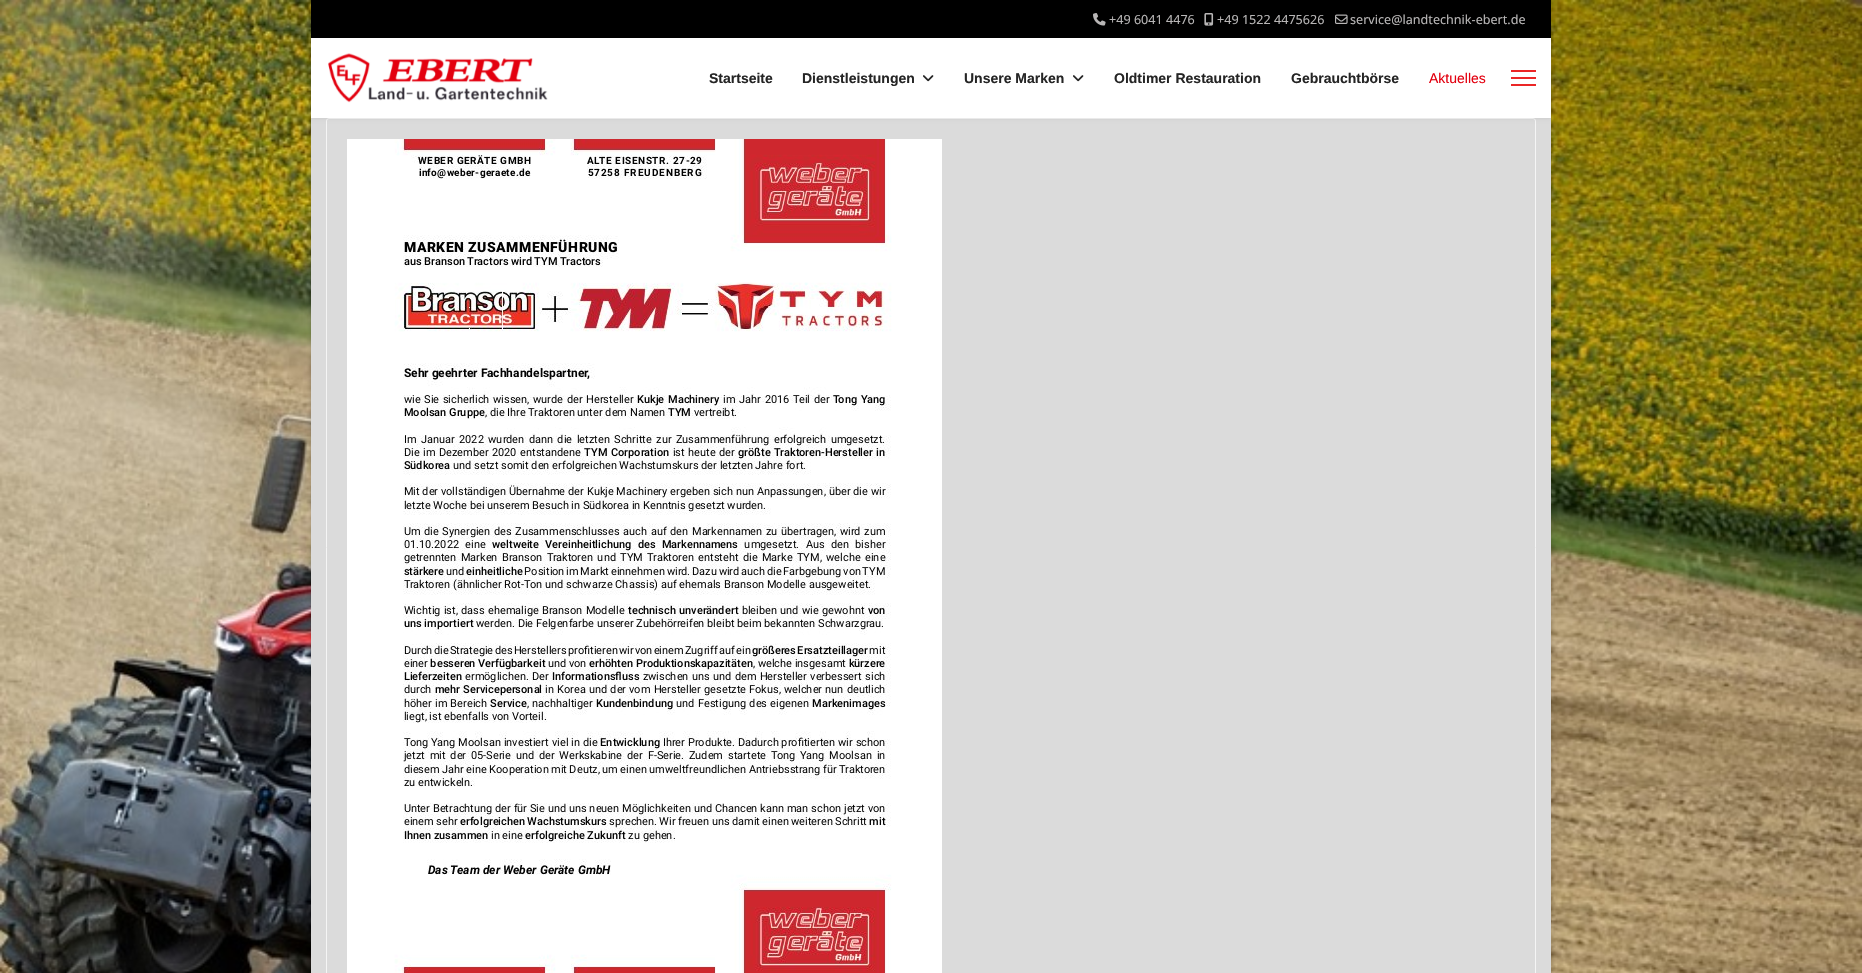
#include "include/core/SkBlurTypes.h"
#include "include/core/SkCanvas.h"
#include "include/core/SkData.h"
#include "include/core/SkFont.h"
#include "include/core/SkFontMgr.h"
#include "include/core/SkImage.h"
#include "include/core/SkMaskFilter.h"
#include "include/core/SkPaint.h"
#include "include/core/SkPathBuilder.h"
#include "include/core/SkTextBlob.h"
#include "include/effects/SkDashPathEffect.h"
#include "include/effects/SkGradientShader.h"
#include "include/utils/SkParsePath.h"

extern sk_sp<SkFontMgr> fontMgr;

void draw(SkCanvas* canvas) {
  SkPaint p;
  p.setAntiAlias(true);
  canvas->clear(SK_ColorWHITE);
  canvas->drawImageRect(SkImages::DeferredFromEncodedData(SkData::MakeFromFileName("images/1.png")), SkRect::MakeLTRB(0, 0, 1862, 973), SkSamplingOptions());
  p.setColor(SkColorSetARGB(51, 0, 0, 0));
  p.setMaskFilter(SkMaskFilter::MakeBlur(kNormal_SkBlurStyle, 2.5f));
  canvas->drawRect(SkRect::MakeLTRB(311, 0, 1551, 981), p);
  p.setMaskFilter(nullptr);
  p.setColor(SK_ColorBLACK);
  canvas->drawRect(SkRect::MakeLTRB(311, 0, 1551, 38), p);
  canvas->drawImageRect(SkImages::DeferredFromEncodedData(SkData::MakeFromFileName("images/2.png")), SkRect::MakeLTRB(1093, 13, 1106, 26), SkSamplingOptions());
  canvas->drawImageRect(SkImages::DeferredFromEncodedData(SkData::MakeFromFileName("images/3.png")), SkRect::MakeLTRB(1204, 13, 1214, 26), SkSamplingOptions());
  canvas->drawImageRect(SkImages::DeferredFromEncodedData(SkData::MakeFromFileName("images/4.png")), SkRect::MakeLTRB(1335, 14, 1348, 24), SkSamplingOptions());
  p.setColor(SkColorSetRGB(219, 219, 219));
  canvas->drawRect(SkRect::MakeLTRB(311, 118, 1551, 973), p);
  p.setStyle(SkPaint::kStroke_Style);
  p.setStrokeWidth(1);
  p.setColor(SkColorSetRGB(245, 245, 245));
  canvas->drawRoundRect(SkRect::MakeLTRB(326.5f, 118.5f, 1535.5f, 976.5f), 2.5f, 2.5f, p);
  p.setStyle(SkPaint::kFill_Style);
  p.setColor(SkColorSetARGB(26, 0, 0, 0));
  p.setMaskFilter(SkMaskFilter::MakeBlur(kNormal_SkBlurStyle, 2));
  canvas->drawRect(SkRect::MakeLTRB(311, 38, 1551, 118), p);
  p.setMaskFilter(nullptr);
  p.setColor(SK_ColorWHITE);
  canvas->drawRect(SkRect::MakeLTRB(311, 38, 1551, 118), p);
  canvas->drawImageRect(SkImages::DeferredFromEncodedData(SkData::MakeFromFileName("images/5.png")), SkRect::MakeLTRB(328, 53, 548, 103), SkSamplingOptions());
  canvas->drawImageRect(SkImages::DeferredFromEncodedData(SkData::MakeFromFileName("images/6.png")), SkRect::MakeLTRB(923, 75, 934, 82), SkSamplingOptions());
  canvas->drawImageRect(SkImages::DeferredFromEncodedData(SkData::MakeFromFileName("images/6.png")), SkRect::MakeLTRB(1073, 75, 1084, 82), SkSamplingOptions());
  p.setColor(SkColorSetRGB(235, 38, 38));
  canvas->drawRect(SkRect::MakeLTRB(1511, 70, 1536, 72), p);
  canvas->drawRect(SkRect::MakeLTRB(1511, 77, 1536, 79), p);
  canvas->drawRect(SkRect::MakeLTRB(1511, 84, 1536, 86), p);
  canvas->drawImageRect(SkImages::DeferredFromEncodedData(SkData::MakeFromFileName("images/7.png")), SkRect::MakeLTRB(347, 139, 942, 973), SkSamplingOptions());
  SkFont font1(fontMgr->matchFamilyStyle("Noto Sans", SkFontStyle::Normal()), 12.6f);
  font1.setSubpixel(true);
  p.setColor(SkColorSetRGB(184, 182, 182));
  canvas->drawString("+49 6041 4476", 1109, 24, font1, p);
  canvas->drawString("+49 1522 4475626", 1217, 24, font1, p);
  canvas->drawString("service@landtechnik-ebert.de", 1350, 24, font1, p);
  SkFont font2(fontMgr->matchFamilyStyle("Liberation Sans", SkFontStyle::Bold()), 14);
  font2.setSubpixel(true);
  p.setColor(SkColorSetRGB(37, 37, 37));
  canvas->drawString("Startseite", 709, 83, font2, p);
  canvas->drawString("Dienstleistungen", 802, 83, font2, p);
  canvas->drawString("Unsere Marken", 964, 83, font2, p);
  canvas->drawString("Oldtimer Restauration", 1114, 83, font2, p);
  canvas->drawString("Gebrauchtbörse", 1291, 83, font2, p);
  SkFont font3(fontMgr->matchFamilyStyle("Liberation Sans", SkFontStyle::Normal()), 14);
  font3.setSubpixel(true);
  p.setColor(SkColorSetRGB(227, 0, 15));
  canvas->drawString("Aktuelles", 1429, 83, font3, p);
}
